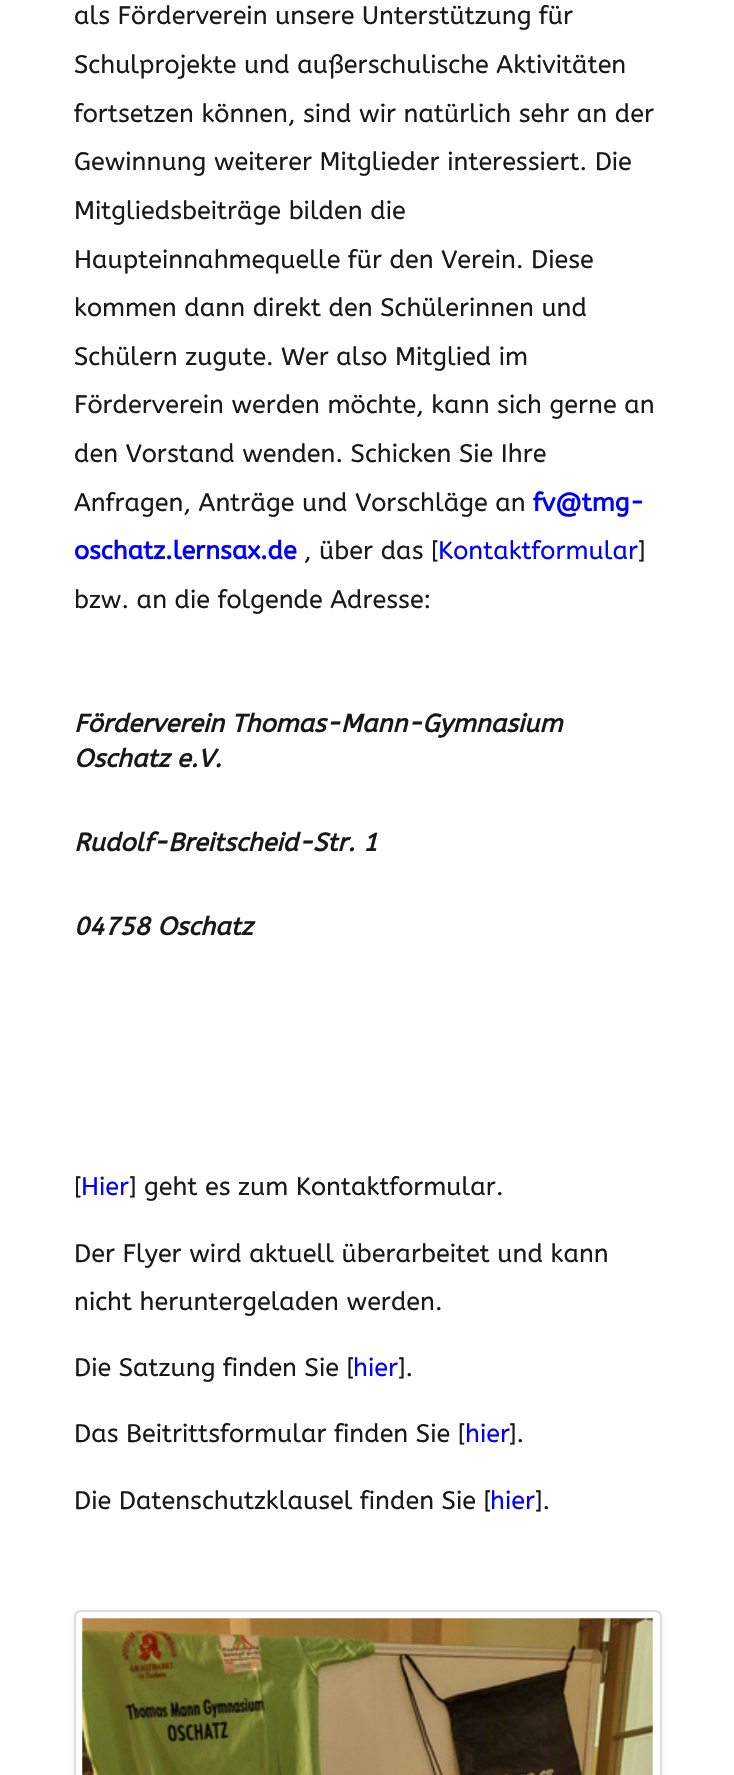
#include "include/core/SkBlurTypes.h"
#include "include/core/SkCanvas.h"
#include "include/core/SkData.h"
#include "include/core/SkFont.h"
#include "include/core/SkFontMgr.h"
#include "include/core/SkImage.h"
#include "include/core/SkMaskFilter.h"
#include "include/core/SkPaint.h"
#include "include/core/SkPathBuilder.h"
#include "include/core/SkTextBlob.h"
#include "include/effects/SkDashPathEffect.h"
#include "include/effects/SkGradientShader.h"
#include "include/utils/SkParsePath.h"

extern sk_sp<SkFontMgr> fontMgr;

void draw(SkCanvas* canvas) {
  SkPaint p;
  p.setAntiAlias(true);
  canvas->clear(SK_ColorWHITE);
  p.setColor(SkColorSetARGB(15, 0, 0, 0));
  p.setMaskFilter(SkMaskFilter::MakeBlur(kNormal_SkBlurStyle, 2.5f));
  canvas->drawRoundRect(SkRect::MakeLTRB(74, 1612, 662, 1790), 7, 7, p);
  p.setMaskFilter(nullptr);
  p.setColor(SK_ColorWHITE);
  canvas->drawRoundRect(SkRect::MakeLTRB(75, 1611, 661, 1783), 6, 6, p);
  p.setStyle(SkPaint::kStroke_Style);
  p.setStrokeWidth(2);
  p.setColor(SkColorSetRGB(221, 221, 221));
  canvas->drawRoundRect(SkRect::MakeLTRB(75, 1611, 661, 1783), 6, 6, p);
  canvas->drawImageRect(SkImages::DeferredFromEncodedData(SkData::MakeFromFileName("images/1.png")), SkRect::MakeLTRB(82, 1618, 653, 1775), SkSamplingOptions());
  SkFont font1(fontMgr->matchFamilyStyle("ABeeZee", SkFontStyle::Normal()), 25.2f);
  font1.setSubpixel(true);
  p.setStyle(SkPaint::kFill_Style);
  p.setColor(SkColorSetRGB(25, 25, 25));
  canvas->drawString("als Förderverein unsere Unterstützung für", 74, 24, font1, p);
  canvas->drawString("Schulprojekte und außerschulische Aktivitäten", 74, 73, font1, p);
  canvas->drawString("fortsetzen können, sind wir natürlich sehr an der", 74, 122, font1, p);
  canvas->drawString("Gewinnung weiterer Mitglieder interessiert. Die", 74, 170, font1, p);
  canvas->drawString("Mitgliedsbeiträge bilden die", 74, 219, font1, p);
  canvas->drawString("Haupteinnahmequelle für den Verein. Diese", 74, 268, font1, p);
  canvas->drawString("kommen dann direkt den Schülerinnen und", 74, 316, font1, p);
  canvas->drawString("Schülern zugute. Wer also Mitglied im", 74, 365, font1, p);
  canvas->drawString("Förderverein werden möchte, kann sich gerne an", 74, 413, font1, p);
  canvas->drawString("den Vorstand wenden. Schicken Sie Ihre", 74, 462, font1, p);
  canvas->drawString("Anfragen, Anträge und Vorschläge an", 74, 511, font1, p);
  SkFont font2(fontMgr->matchFamilyStyle("ABeeZee", SkFontStyle::Bold()), 25.2f);
  font2.setSubpixel(true);
  p.setColor(SkColorSetRGB(0, 0, 255));
  canvas->drawString("fv@tmg-", 533, 511, font2, p);
  canvas->drawString("oschatz.lernsax.de", 74, 559, font2, p);
  p.setColor(SkColorSetRGB(25, 25, 25));
  canvas->drawString(", über das [", 304, 559, font1, p);
  p.setColor(SkColorSetRGB(0, 0, 255));
  canvas->drawString("Kontaktformular", 438, 559, font1, p);
  p.setColor(SkColorSetRGB(25, 25, 25));
  canvas->drawString("]", 638, 559, font1, p);
  canvas->drawString("bzw. an die folgende Adresse:", 74, 608, font1, p);
  SkFont font3(fontMgr->matchFamilyStyle("ABeeZee", SkFontStyle::BoldItalic()), 25.2f);
  font3.setSubpixel(true);
  canvas->drawString("Förderverein Thomas-Mann-Gymnasium", 74, 732, font3, p);
  canvas->drawString("Oschatz e.V.", 74, 767, font3, p);
  canvas->drawString("Rudolf-Breitscheid-Str. 1", 74, 851, font3, p);
  canvas->drawString("04758 Oschatz", 74, 935, font3, p);
  canvas->drawString("[", 74, 1195, font1, p);
  p.setColor(SkColorSetRGB(0, 0, 255));
  canvas->drawString("Hier", 81, 1195, font1, p);
  p.setColor(SkColorSetRGB(25, 25, 25));
  canvas->drawString("] geht es zum Kontaktformular.", 129, 1195, font1, p);
  canvas->drawString("Der Flyer wird aktuell überarbeitet und kann", 74, 1262, font1, p);
  canvas->drawString("nicht heruntergeladen werden.", 74, 1310, font1, p);
  canvas->drawString("Die Satzung finden Sie [", 74, 1376, font1, p);
  p.setColor(SkColorSetRGB(0, 0, 255));
  canvas->drawString("hier", 353, 1376, font1, p);
  p.setColor(SkColorSetRGB(25, 25, 25));
  canvas->drawString("].", 398, 1376, font1, p);
  canvas->drawString("Das Beitrittsformular finden Sie [", 74, 1442, font1, p);
  p.setColor(SkColorSetRGB(0, 0, 255));
  canvas->drawString("hier", 465, 1442, font1, p);
  p.setColor(SkColorSetRGB(25, 25, 25));
  canvas->drawString("].", 509, 1442, font1, p);
  canvas->drawString("Die Datenschutzklausel finden Sie [", 74, 1509, font1, p);
  p.setColor(SkColorSetRGB(0, 0, 255));
  canvas->drawString("hier", 490, 1509, font1, p);
  p.setColor(SkColorSetRGB(25, 25, 25));
  canvas->drawString("].", 535, 1509, font1, p);
}
